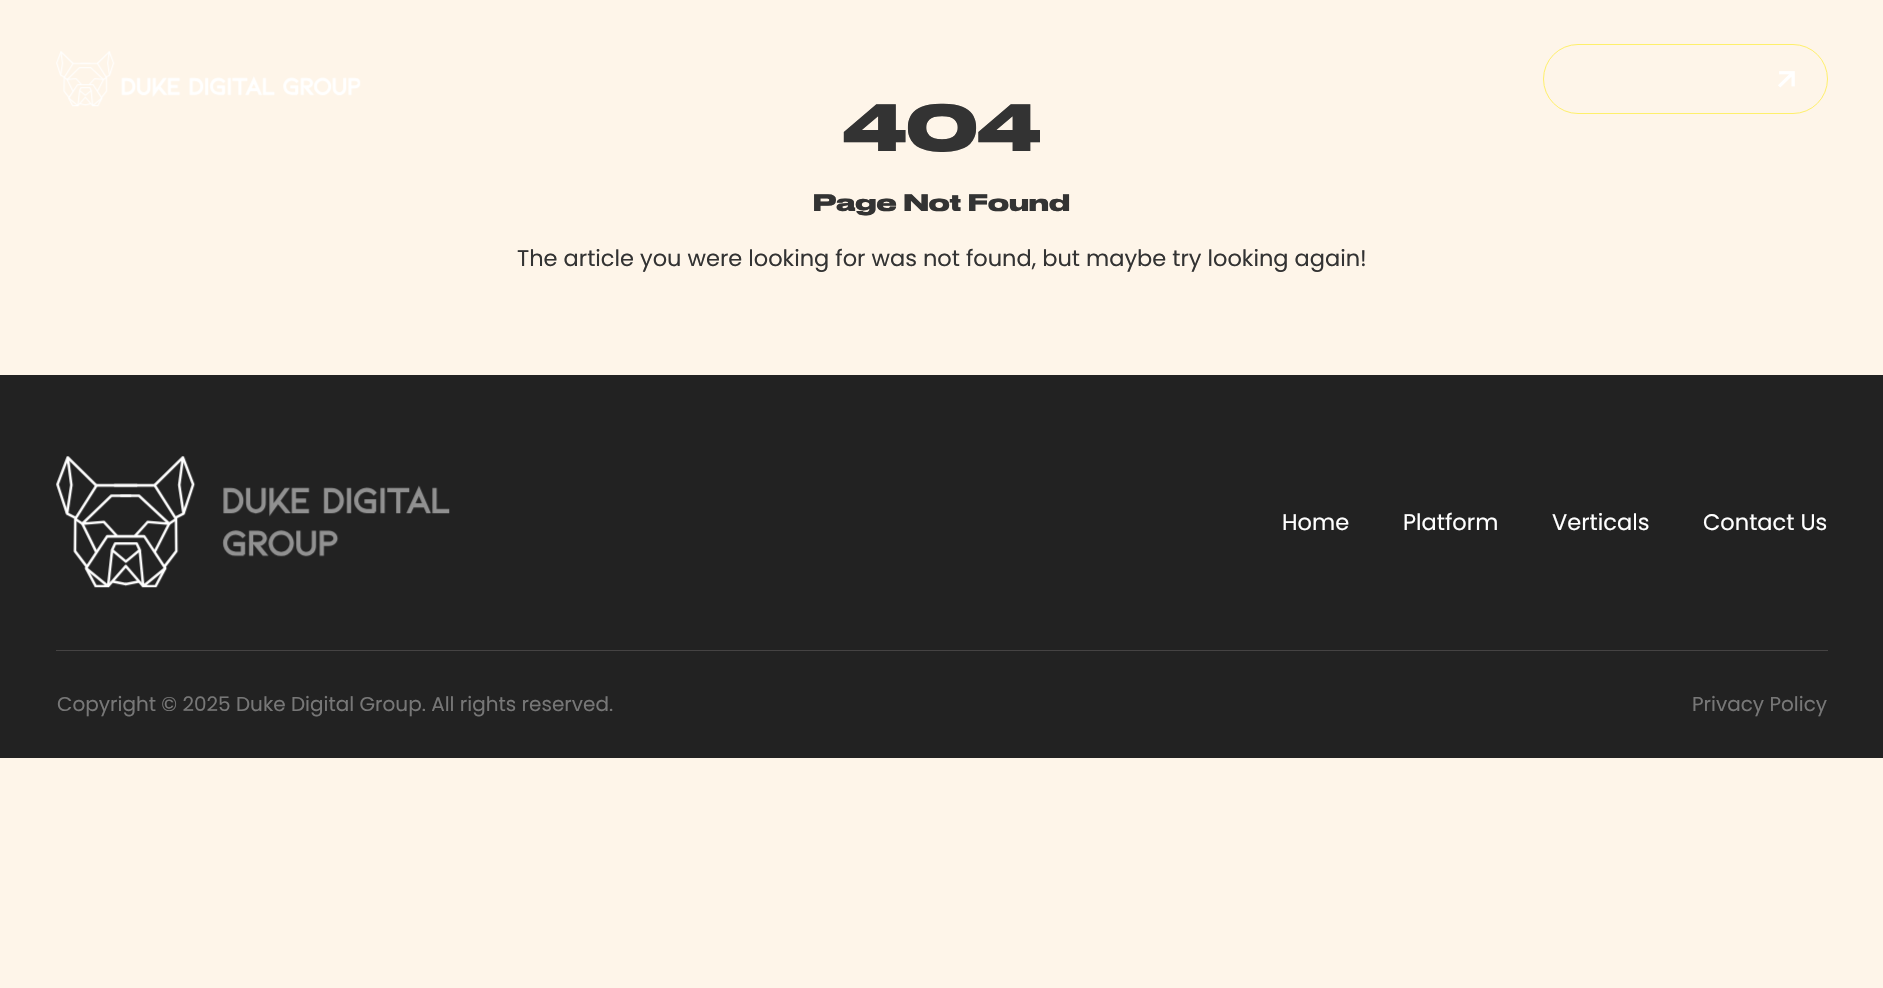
#include "include/core/SkBlurTypes.h"
#include "include/core/SkCanvas.h"
#include "include/core/SkData.h"
#include "include/core/SkFont.h"
#include "include/core/SkFontMgr.h"
#include "include/core/SkImage.h"
#include "include/core/SkMaskFilter.h"
#include "include/core/SkPaint.h"
#include "include/core/SkPathBuilder.h"
#include "include/core/SkTextBlob.h"
#include "include/effects/SkDashPathEffect.h"
#include "include/effects/SkGradientShader.h"
#include "include/utils/SkParsePath.h"

extern sk_sp<SkFontMgr> fontMgr;

void draw(SkCanvas* canvas) {
  SkPaint p;
  p.setAntiAlias(true);
  canvas->clear(SkColorSetRGB(254, 245, 233));
  canvas->drawImageRect(SkImages::DeferredFromEncodedData(SkData::MakeFromFileName("images/1.png")), SkRect::MakeLTRB(56, 51, 361, 107), SkSamplingOptions());
  p.setStyle(SkPaint::kStroke_Style);
  p.setStrokeWidth(1);
  p.setColor(SkColorSetRGB(254, 240, 107));
  canvas->drawRoundRect(SkRect::MakeLTRB(1543.5f, 44.5f, 1827.5f, 113.5f), 34.5f, 34.5f, p);
  canvas->drawImageRect(SkImages::DeferredFromEncodedData(SkData::MakeFromFileName("images/2.png")), SkRect::MakeLTRB(1778, 71, 1795, 88), SkSamplingOptions());
  p.setStyle(SkPaint::kFill_Style);
  p.setColor(SkColorSetRGB(34, 34, 34));
  canvas->drawRect(SkRect::MakeLTRB(0, 375, 1883, 758), p);
  p.setColor(SkColorSetRGB(69, 67, 67));
  canvas->drawRect(SkRect::MakeLTRB(56, 650, 1828, 651), p);
  canvas->drawImageRect(SkImages::DeferredFromEncodedData(SkData::MakeFromFileName("images/3.png")), SkRect::MakeLTRB(56, 456, 450, 588), SkSamplingOptions());
  SkFont font1(fontMgr->matchFamilyStyle("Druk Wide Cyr", SkFontStyle::Bold()), 62.5f);
  font1.setSubpixel(true);
  p.setColor(SkColorSetRGB(51, 51, 51));
  canvas->drawString("404", 843, 151, font1, p);
  SkFont font2(fontMgr->matchFamilyStyle("Druk Wide Cyr", SkFontStyle::Bold()), 22.5f);
  font2.setSubpixel(true);
  canvas->drawString("Page Not Found", 813, 211, font2, p);
  SkFont font3(fontMgr->matchFamilyStyle("Poppins", SkFontStyle::Normal()), 22.5f);
  font3.setSubpixel(true);
  canvas->drawString("The article you were looking for was not found, but maybe try looking again!", 517, 266, font3, p);
  p.setColor(SK_ColorWHITE);
  canvas->drawString("Home", 1282, 530, font3, p);
  canvas->drawString("Platform", 1403, 530, font3, p);
  canvas->drawString("Verticals", 1552, 530, font3, p);
  canvas->drawString("Contact Us", 1703, 530, font3, p);
  SkFont font4(fontMgr->matchFamilyStyle("Poppins", SkFontStyle::Normal()), 20);
  font4.setSubpixel(true);
  p.setColor(SkColorSetRGB(119, 119, 119));
  canvas->drawString("Copyright © 2025 Duke Digital Group. All rights reserved.", 57, 711, font4, p);
  canvas->drawString("Privacy Policy", 1692, 711, font4, p);
}
